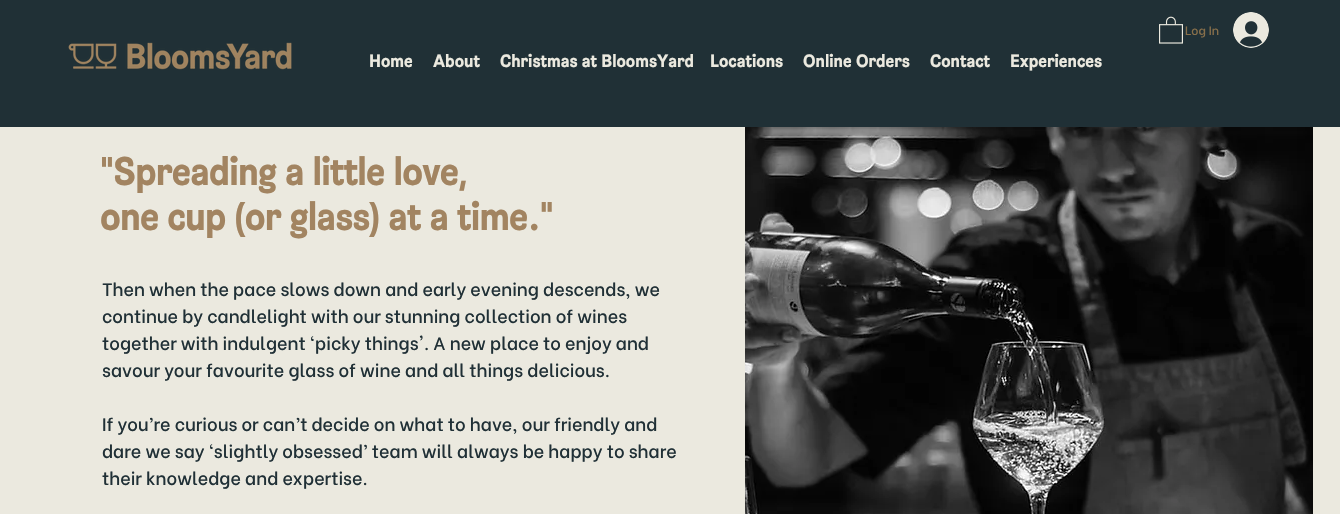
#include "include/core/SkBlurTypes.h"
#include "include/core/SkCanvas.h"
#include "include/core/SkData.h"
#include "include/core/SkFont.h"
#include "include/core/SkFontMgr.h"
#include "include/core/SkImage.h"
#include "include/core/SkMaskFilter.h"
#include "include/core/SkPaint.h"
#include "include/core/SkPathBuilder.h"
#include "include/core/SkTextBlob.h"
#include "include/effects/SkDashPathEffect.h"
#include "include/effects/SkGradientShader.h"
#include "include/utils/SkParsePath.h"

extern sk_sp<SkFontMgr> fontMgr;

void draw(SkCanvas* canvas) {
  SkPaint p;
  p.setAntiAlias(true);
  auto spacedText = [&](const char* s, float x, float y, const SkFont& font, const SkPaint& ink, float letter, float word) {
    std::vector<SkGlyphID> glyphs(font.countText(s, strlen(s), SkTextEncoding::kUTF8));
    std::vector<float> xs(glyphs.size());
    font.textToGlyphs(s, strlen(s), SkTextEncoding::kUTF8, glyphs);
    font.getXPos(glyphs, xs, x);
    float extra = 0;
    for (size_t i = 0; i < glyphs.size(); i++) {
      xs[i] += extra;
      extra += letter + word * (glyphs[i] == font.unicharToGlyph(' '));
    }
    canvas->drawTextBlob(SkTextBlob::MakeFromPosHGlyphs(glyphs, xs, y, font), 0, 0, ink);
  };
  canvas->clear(SkColorSetRGB(235, 233, 223));
  p.setColor(SkColorSetRGB(32, 48, 54));
  canvas->drawRect(SkRect::MakeLTRB(0, 0, 1340, 127), p);
  canvas->drawImageRect(SkImages::DeferredFromEncodedData(SkData::MakeFromFileName("images/1.png")), SkRect::MakeLTRB(1159, 16, 1183, 44), SkSamplingOptions());
  canvas->drawImageRect(SkImages::DeferredFromEncodedData(SkData::MakeFromFileName("images/2.png")), SkRect::MakeLTRB(1233, 12, 1269, 48), SkSamplingOptions());
  canvas->drawImageRect(SkImages::DeferredFromEncodedData(SkData::MakeFromFileName("images/3.png")), SkRect::MakeLTRB(68, 42, 292, 70), SkSamplingOptions());
  canvas->drawImageRect(SkImages::DeferredFromEncodedData(SkData::MakeFromFileName("images/4.png")), SkRect::MakeLTRB(745, 127, 1313, 514), SkSamplingOptions());
  SkFont font1(fontMgr->matchFamilyStyle("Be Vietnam", SkFontStyle(500, SkFontStyle::kNormal_Width, SkFontStyle::kUpright_Slant)), 12);
  font1.setSubpixel(true);
  p.setColor(SkColorSetRGB(136, 111, 74));
  canvas->drawString("Log In", 1185, 35, font1, p);
  SkFont font2(fontMgr->matchFamilyStyle("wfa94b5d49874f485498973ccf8", SkFontStyle::Bold()), 18);
  font2.setSubpixel(true);
  p.setColor(SkColorSetRGB(235, 233, 223));
  canvas->drawString("Home", 369, 67, font2, p);
  canvas->drawString("About", 433, 67, font2, p);
  canvas->drawString("Christmas at BloomsYard", 500, 67, font2, p);
  canvas->drawString("Locations", 710, 67, font2, p);
  canvas->drawString("Online Orders", 803, 67, font2, p);
  canvas->drawString("Contact", 930, 67, font2, p);
  canvas->drawString("Experiences", 1010, 67, font2, p);
  SkFont font3(fontMgr->matchFamilyStyle("wfa94b5d49874f485498973ccf8", SkFontStyle::Bold()), 40);
  font3.setSubpixel(true);
  p.setColor(SkColorSetRGB(162, 132, 97));
  spacedText("\"Spreading a little love,", 100, 185, font3, p, -0.8f, 0);
  spacedText("one cup (or glass) at a time.\"", 100, 230, font3, p, -0.8f, 0);
  SkFont font4(fontMgr->matchFamilyStyle("Be Vietnam", SkFontStyle(500, SkFontStyle::kNormal_Width, SkFontStyle::kUpright_Slant)), 18);
  font4.setSubpixel(true);
  p.setColor(SkColorSetRGB(32, 48, 54));
  canvas->drawString("Then when the pace slows down and early evening descends, we", 102, 296, font4, p);
  canvas->drawString("continue by candlelight with our stunning collection of wines", 102, 323, font4, p);
  canvas->drawString("together with indulgent ‘picky things'. A new place to enjoy and", 102, 350, font4, p);
  canvas->drawString("savour your favourite glass of wine and all things delicious.", 102, 377, font4, p);
  canvas->drawString("If you’re curious or can’t decide on what to have, our friendly and", 102, 431, font4, p);
  canvas->drawString("dare we say ‘slightly obsessed’ team will always be happy to share", 102, 458, font4, p);
  canvas->drawString("their knowledge and expertise.", 102, 485, font4, p);
}
